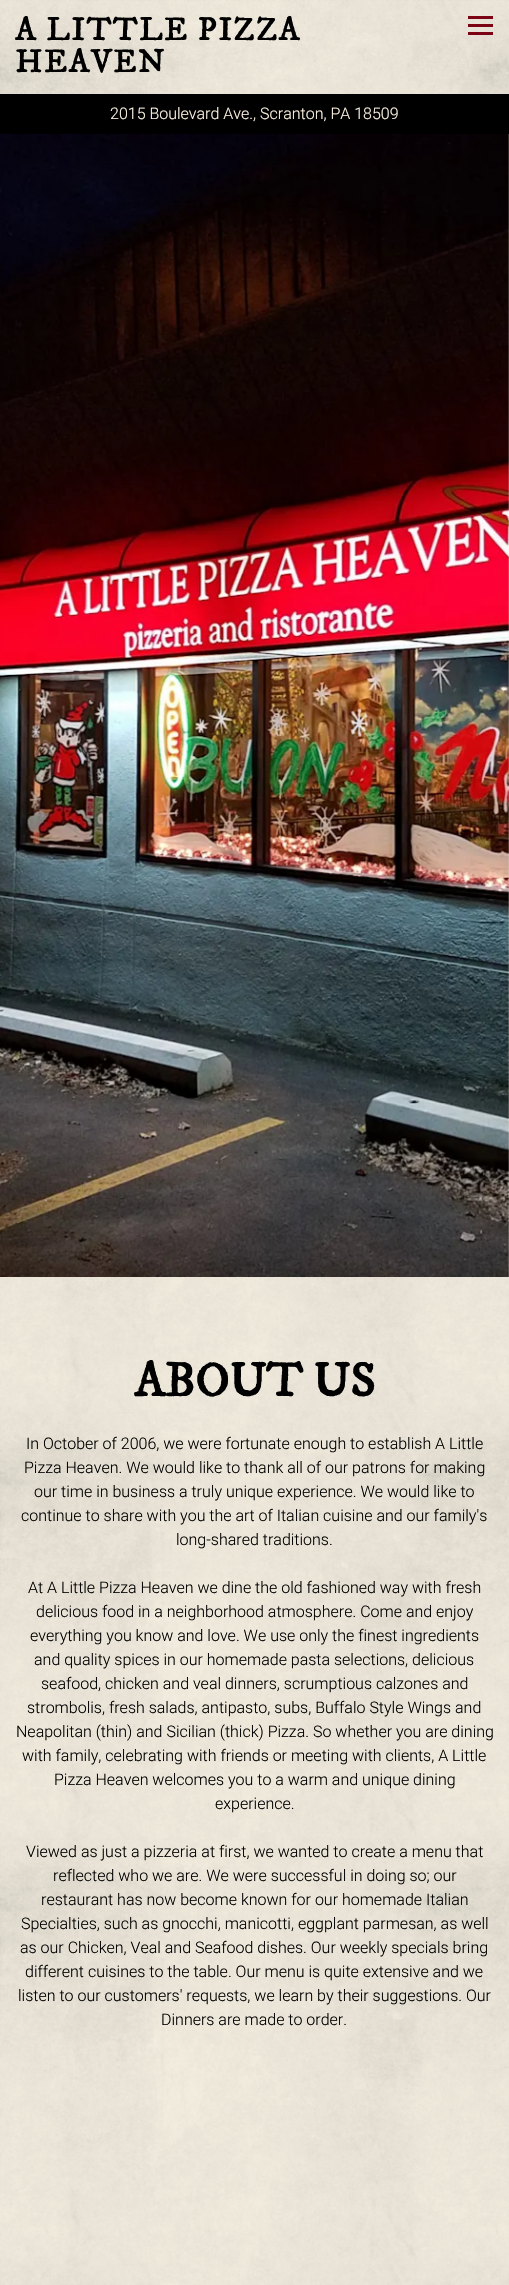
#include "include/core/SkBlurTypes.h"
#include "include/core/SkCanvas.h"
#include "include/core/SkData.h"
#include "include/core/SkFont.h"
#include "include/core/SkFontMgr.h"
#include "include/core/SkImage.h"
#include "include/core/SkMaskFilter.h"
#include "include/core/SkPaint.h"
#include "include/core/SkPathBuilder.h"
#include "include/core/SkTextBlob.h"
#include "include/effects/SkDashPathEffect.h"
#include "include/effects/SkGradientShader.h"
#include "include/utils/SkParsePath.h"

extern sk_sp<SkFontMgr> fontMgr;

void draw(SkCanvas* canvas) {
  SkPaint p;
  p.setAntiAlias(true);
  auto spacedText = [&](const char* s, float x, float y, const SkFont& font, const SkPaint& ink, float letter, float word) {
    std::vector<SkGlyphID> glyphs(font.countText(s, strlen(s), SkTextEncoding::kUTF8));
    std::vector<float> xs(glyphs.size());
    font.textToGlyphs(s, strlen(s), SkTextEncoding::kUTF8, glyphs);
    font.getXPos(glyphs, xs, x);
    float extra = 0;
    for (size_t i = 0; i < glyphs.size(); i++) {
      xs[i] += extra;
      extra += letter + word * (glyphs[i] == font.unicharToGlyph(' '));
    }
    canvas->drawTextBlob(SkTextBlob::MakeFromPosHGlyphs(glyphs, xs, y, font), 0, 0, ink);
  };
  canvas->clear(SK_ColorWHITE);
  canvas->drawImageRect(SkImages::DeferredFromEncodedData(SkData::MakeFromFileName("images/1.png")), SkRect::MakeLTRB(0, 0, 509, 94), SkSamplingOptions());
  p.setColor(SkColorSetRGB(124, 3, 20));
  canvas->drawRect(SkRect::MakeLTRB(468, 16, 493, 19), p);
  canvas->drawRect(SkRect::MakeLTRB(468, 24, 493, 27), p);
  canvas->drawRect(SkRect::MakeLTRB(468, 32, 493, 35), p);
  p.setColor(SK_ColorBLACK);
  canvas->drawRect(SkRect::MakeLTRB(0, 94, 509, 134), p);
  canvas->drawImageRect(SkImages::DeferredFromEncodedData(SkData::MakeFromFileName("images/2.png")), SkRect::MakeLTRB(0, 134, 509, 2285), SkSamplingOptions());
  canvas->drawImageRect(SkImages::DeferredFromEncodedData(SkData::MakeFromFileName("images/3.png")), SkRect::MakeLTRB(0, 134, 509, 1277), SkSamplingOptions());
  SkFont font1(fontMgr->matchFamilyStyle("IM FELL DW Pica", SkFontStyle::Bold()), 32);
  font1.setSubpixel(true);
  spacedText("A LITTLE PIZZA", 15, 40, font1, p, 2, 0);
  spacedText("HEAVEN", 15, 72, font1, p, 2, 0);
  SkFont font2(fontMgr->matchFamilyStyle("Roboto", SkFontStyle(300, SkFontStyle::kNormal_Width, SkFontStyle::kUpright_Slant)), 16);
  font2.setSubpixel(true);
  p.setColor(SkColorSetRGB(255, 244, 227));
  canvas->drawString("2015 Boulevard Ave., Scranton, PA 18509", 110, 119, font2, p);
  SkFont font3(fontMgr->matchFamilyStyle("IM FELL DW Pica", SkFontStyle::Bold()), 48);
  font3.setSubpixel(true);
  p.setColor(SK_ColorBLACK);
  canvas->drawString("ABOUT US", 134, 1396, font3, p);
  canvas->drawString("In October of 2006, we were fortunate enough to establish A Little", 26, 1449, font2, p);
  canvas->drawString("Pizza Heaven. We would like to thank all of our patrons for making", 24, 1473, font2, p);
  canvas->drawString("our time in business a truly unique experience. We would like to", 34, 1497, font2, p);
  canvas->drawString("continue to share with you the art of Italian cuisine and our family's", 21, 1521, font2, p);
  canvas->drawString("long-shared traditions.", 176, 1545, font2, p);
  canvas->drawString("At A Little Pizza Heaven we dine the old fashioned way with fresh", 28, 1593, font2, p);
  canvas->drawString("delicious food in a neighborhood atmosphere. Come and enjoy", 36, 1617, font2, p);
  canvas->drawString("everything you know and love. We use only the finest ingredients", 30, 1641, font2, p);
  canvas->drawString("and quality spices in our homemade pasta selections, delicious", 34, 1665, font2, p);
  canvas->drawString("seafood, chicken and veal dinners, scrumptious calzones and", 41, 1689, font2, p);
  canvas->drawString("strombolis, fresh salads, antipasto, subs, Buffalo Style Wings and", 27, 1713, font2, p);
  canvas->drawString("Neapolitan (thin) and Sicilian (thick) Pizza. So whether you are dining", 16, 1737, font2, p);
  canvas->drawString("with family, celebrating with friends or meeting with clients, A Little", 22, 1761, font2, p);
  canvas->drawString("Pizza Heaven welcomes you to a warm and unique dining", 54, 1785, font2, p);
  canvas->drawString("experience.", 215, 1809, font2, p);
  canvas->drawString("Viewed as just a pizzeria at first, we wanted to create a menu that", 26, 1857, font2, p);
  canvas->drawString("reflected who we are. We were successful in doing so; our", 53, 1881, font2, p);
  canvas->drawString("restaurant has now become known for our homemade Italian", 41, 1905, font2, p);
  canvas->drawString("Specialties, such as gnocchi, manicotti, eggplant parmesan, as well", 21, 1929, font2, p);
  canvas->drawString("as our Chicken, Veal and Seafood dishes. Our weekly specials bring", 20, 1953, font2, p);
  canvas->drawString("different cuisines to the table. Our menu is quite extensive and we", 25, 1977, font2, p);
  canvas->drawString("listen to our customers' requests, we learn by their suggestions. Our", 18, 2001, font2, p);
  canvas->drawString("Dinners are made to order.", 161, 2025, font2, p);
}
